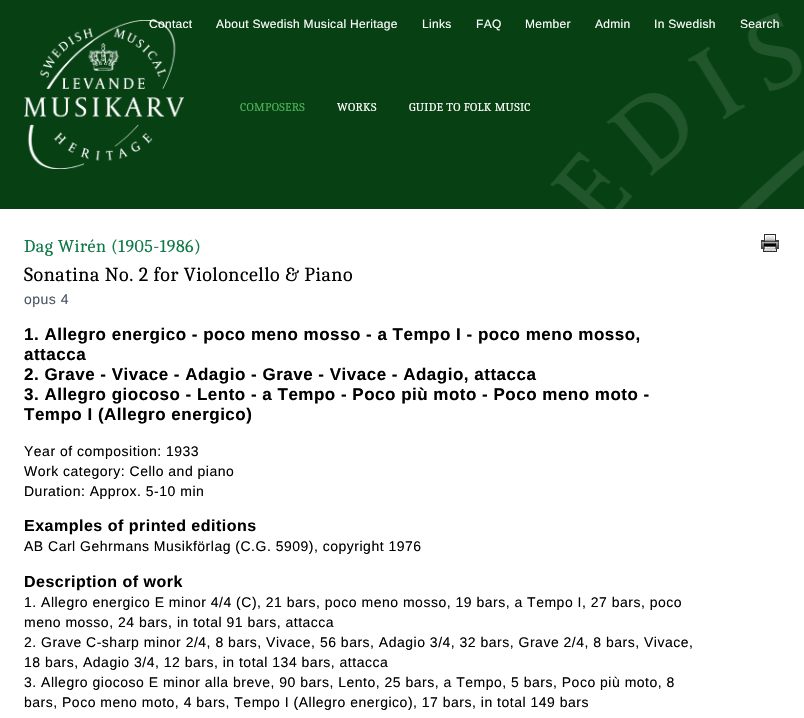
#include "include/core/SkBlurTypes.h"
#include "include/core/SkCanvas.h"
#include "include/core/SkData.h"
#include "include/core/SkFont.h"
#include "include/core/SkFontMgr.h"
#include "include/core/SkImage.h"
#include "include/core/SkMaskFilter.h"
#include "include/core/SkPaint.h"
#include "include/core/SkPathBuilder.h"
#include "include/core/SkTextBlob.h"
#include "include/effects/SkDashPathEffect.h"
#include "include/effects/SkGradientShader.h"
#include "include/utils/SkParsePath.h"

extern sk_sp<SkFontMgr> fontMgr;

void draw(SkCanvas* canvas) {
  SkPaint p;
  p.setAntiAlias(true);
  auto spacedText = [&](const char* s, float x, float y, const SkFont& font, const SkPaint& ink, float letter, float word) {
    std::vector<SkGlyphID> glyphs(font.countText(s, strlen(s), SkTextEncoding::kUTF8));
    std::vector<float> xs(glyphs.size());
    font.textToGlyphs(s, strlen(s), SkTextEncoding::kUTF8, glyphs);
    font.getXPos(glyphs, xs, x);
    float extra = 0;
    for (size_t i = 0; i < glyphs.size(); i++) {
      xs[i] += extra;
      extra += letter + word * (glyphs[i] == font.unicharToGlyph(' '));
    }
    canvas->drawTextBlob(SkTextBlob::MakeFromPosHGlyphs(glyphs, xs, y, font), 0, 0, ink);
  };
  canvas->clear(SkColorSetRGB(7, 65, 19));
  canvas->drawImageRect(SkImages::DeferredFromEncodedData(SkData::MakeFromFileName("images/1.png")), SkRect::MakeLTRB(550, 13, 804, 209), SkSamplingOptions());
  canvas->drawImageRect(SkImages::DeferredFromEncodedData(SkData::MakeFromFileName("images/2.png")), SkRect::MakeLTRB(24, 20, 184, 169), SkSamplingOptions());
  p.setColor(SK_ColorWHITE);
  canvas->drawRect(SkRect::MakeLTRB(0, 209, 804, 718), p);
  canvas->drawImageRect(SkImages::DeferredFromEncodedData(SkData::MakeFromFileName("images/3.png")), SkRect::MakeLTRB(761, 234, 779, 252), SkSamplingOptions());
  SkFont font1(fontMgr->matchFamilyStyle("Liberation Sans", SkFontStyle::Normal()), 12);
  font1.setSubpixel(true);
  spacedText("Contact", 149, 28, font1, p, 0.3f, 0);
  spacedText("About Swedish Musical Heritage", 216, 28, font1, p, 0.3f, 0);
  spacedText("Links", 422, 28, font1, p, 0.3f, 0);
  spacedText("FAQ", 476, 28, font1, p, 0.3f, 0);
  spacedText("Member", 525, 28, font1, p, 0.3f, 0);
  spacedText("Admin", 595, 28, font1, p, 0.3f, 0);
  spacedText("In Swedish", 654, 28, font1, p, 0.3f, 0);
  spacedText("Search", 740, 28, font1, p, 0.3f, 0);
  SkFont font2(fontMgr->matchFamilyStyle("Caladea", SkFontStyle::Normal()), 12);
  font2.setSubpixel(true);
  p.setColor(SkColorSetRGB(80, 176, 91));
  spacedText("COMPOSERS", 240, 111, font2, p, 0.3f, 0);
  p.setColor(SK_ColorWHITE);
  spacedText("WORKS", 337, 111, font2, p, 0.3f, 0);
  spacedText("GUIDE TO FOLK MUSIC", 409, 111, font2, p, 0.3f, 0);
  SkFont font3(fontMgr->matchFamilyStyle("Caladea", SkFontStyle::Normal()), 18);
  font3.setSubpixel(true);
  p.setColor(SkColorSetRGB(16, 121, 72));
  spacedText("Dag Wirén (1905-1986)", 24, 252, font3, p, 0.5f, 0);
  SkFont font4(fontMgr->matchFamilyStyle("Caladea", SkFontStyle::Normal()), 20);
  font4.setSubpixel(true);
  p.setColor(SK_ColorBLACK);
  spacedText("Sonatina No. 2 for Violoncello & Piano", 24, 281, font4, p, 0.5f, 0);
  SkFont font5(fontMgr->matchFamilyStyle("Liberation Sans", SkFontStyle::Normal()), 14);
  font5.setSubpixel(true);
  p.setColor(SkColorSetRGB(75, 85, 99));
  spacedText("opus 4", 24, 304, font5, p, 0.5f, 0);
  SkFont font6(fontMgr->matchFamilyStyle("Liberation Sans", SkFontStyle::Bold()), 17);
  font6.setSubpixel(true);
  p.setColor(SK_ColorBLACK);
  spacedText("1. Allegro energico - poco meno mosso - a Tempo I - poco meno mosso,", 24, 340, font6, p, 0.5f, 0);
  spacedText("attacca", 24, 360, font6, p, 0.5f, 0);
  spacedText("2. Grave - Vivace - Adagio - Grave - Vivace - Adagio, attacca", 24, 380, font6, p, 0.5f, 0);
  spacedText("3. Allegro giocoso - Lento - a Tempo - Poco più moto - Poco meno moto -", 24, 400, font6, p, 0.5f, 0);
  spacedText("Tempo I (Allegro energico)", 24, 420, font6, p, 0.5f, 0);
  spacedText("Year of composition: 1933", 24, 456, font5, p, 0.5f, 0);
  spacedText("Work category: Cello and piano", 24, 476, font5, p, 0.5f, 0);
  spacedText("Duration: Approx. 5-10 min", 24, 496, font5, p, 0.5f, 0);
  SkFont font7(fontMgr->matchFamilyStyle("Liberation Sans", SkFontStyle::Bold()), 16);
  font7.setSubpixel(true);
  spacedText("Examples of printed editions", 24, 531, font7, p, 0.5f, 0);
  spacedText("AB Carl Gehrmans Musikförlag (C.G. 5909), copyright 1976", 24, 551, font5, p, 0.5f, 0);
  spacedText("Description of work", 24, 587, font7, p, 0.5f, 0);
  spacedText("1. Allegro energico E minor 4/4 (C), 21 bars, poco meno mosso, 19 bars, a Tempo I, 27 bars, poco", 24, 607, font5, p, 0.5f, 0);
  spacedText("meno mosso, 24 bars, in total 91 bars, attacca", 24, 627, font5, p, 0.5f, 0);
  spacedText("2. Grave C-sharp minor 2/4, 8 bars, Vivace, 56 bars, Adagio 3/4, 32 bars, Grave 2/4, 8 bars, Vivace,", 24, 647, font5, p, 0.5f, 0);
  spacedText("18 bars, Adagio 3/4, 12 bars, in total 134 bars, attacca", 24, 667, font5, p, 0.5f, 0);
  spacedText("3. Allegro giocoso E minor alla breve, 90 bars, Lento, 25 bars, a Tempo, 5 bars, Poco più moto, 8", 24, 687, font5, p, 0.5f, 0);
  spacedText("bars, Poco meno moto, 4 bars, Tempo I (Allegro energico), 17 bars, in total 149 bars", 24, 707, font5, p, 0.5f, 0);
}
